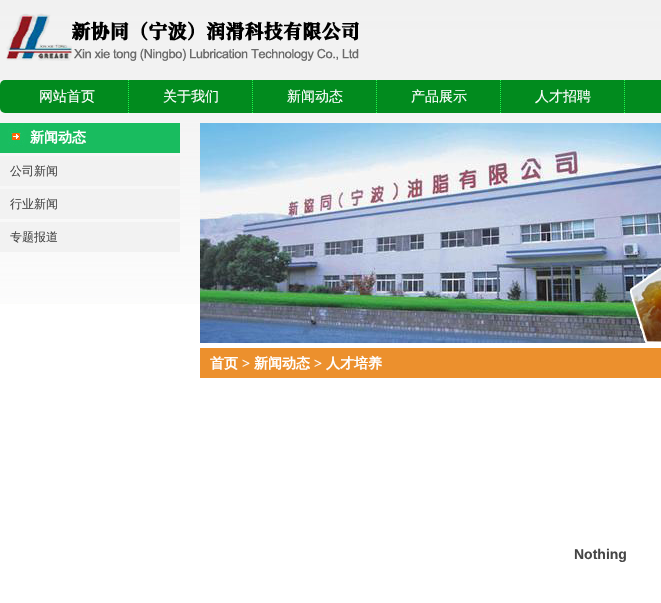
#include "include/core/SkBlurTypes.h"
#include "include/core/SkCanvas.h"
#include "include/core/SkData.h"
#include "include/core/SkFont.h"
#include "include/core/SkFontMgr.h"
#include "include/core/SkImage.h"
#include "include/core/SkMaskFilter.h"
#include "include/core/SkPaint.h"
#include "include/core/SkPathBuilder.h"
#include "include/core/SkTextBlob.h"
#include "include/effects/SkDashPathEffect.h"
#include "include/effects/SkGradientShader.h"
#include "include/utils/SkParsePath.h"

extern sk_sp<SkFontMgr> fontMgr;

void draw(SkCanvas* canvas) {
  SkPaint p;
  p.setAntiAlias(true);
  canvas->clear(SK_ColorWHITE);
  canvas->drawImageRect(SkImages::DeferredFromEncodedData(SkData::MakeFromFileName("images/1.png")), SkRect::MakeLTRB(0, 0, 661, 304), SkSamplingOptions());
  canvas->drawImageRect(SkImages::DeferredFromEncodedData(SkData::MakeFromFileName("images/2.png")), SkRect::MakeLTRB(6, 13, 359, 61), SkSamplingOptions());
  p.setColor(SkColorSetRGB(1, 139, 30));
  canvas->drawRoundRect(SkRect::MakeLTRB(0, 80, 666, 113), 5, 5, p);
  p.setStyle(SkPaint::kStroke_Style);
  p.setStrokeWidth(1);
  p.setColor(SkColorSetRGB(28, 253, 75));
  p.setPathEffect(SkDashPathEffect::Make({{1, 1}}, 0));
  canvas->drawPath(SkPathBuilder().moveTo(128.5f, 80).lineTo(128.5f, 113).detach(), p);
  p.setPathEffect(nullptr);
  p.setPathEffect(SkDashPathEffect::Make({{1, 1}}, 0));
  canvas->drawPath(SkPathBuilder().moveTo(252.5f, 80).lineTo(252.5f, 113).detach(), p);
  p.setPathEffect(nullptr);
  p.setPathEffect(SkDashPathEffect::Make({{1, 1}}, 0));
  canvas->drawPath(SkPathBuilder().moveTo(376.5f, 80).lineTo(376.5f, 113).detach(), p);
  p.setPathEffect(nullptr);
  p.setPathEffect(SkDashPathEffect::Make({{1, 1}}, 0));
  canvas->drawPath(SkPathBuilder().moveTo(500.5f, 80).lineTo(500.5f, 113).detach(), p);
  p.setPathEffect(nullptr);
  p.setPathEffect(SkDashPathEffect::Make({{1, 1}}, 0));
  canvas->drawPath(SkPathBuilder().moveTo(624.5f, 80).lineTo(624.5f, 113).detach(), p);
  p.setPathEffect(nullptr);
  canvas->drawImageRect(SkImages::DeferredFromEncodedData(SkData::MakeFromFileName("images/3.png")), SkRect::MakeLTRB(0, 123, 180, 153), SkSamplingOptions());
  p.setStyle(SkPaint::kFill_Style);
  p.setColor(SkColorSetRGB(242, 242, 242));
  canvas->drawRect(SkRect::MakeLTRB(0, 156, 180, 186), p);
  canvas->drawRect(SkRect::MakeLTRB(0, 189, 180, 219), p);
  canvas->drawRect(SkRect::MakeLTRB(0, 222, 180, 252), p);
  canvas->drawImageRect(SkImages::DeferredFromEncodedData(SkData::MakeFromFileName("images/4.png")), SkRect::MakeLTRB(200, 123, 661, 343), SkSamplingOptions());
  p.setColor(SkColorSetRGB(236, 144, 45));
  canvas->drawRect(SkRect::MakeLTRB(200, 348, 661, 378), p);
  SkFont font1(fontMgr->matchFamilyStyle("WenQuanYi Zen Hei", SkFontStyle(500, SkFontStyle::kNormal_Width, SkFontStyle::kUpright_Slant)), 14);
  font1.setSubpixel(true);
  p.setColor(SK_ColorWHITE);
  canvas->drawString("网站首页", 39, 101, font1, p);
  canvas->drawString("关于我们", 163, 101, font1, p);
  canvas->drawString("新闻动态", 287, 101, font1, p);
  canvas->drawString("产品展示", 411, 101, font1, p);
  canvas->drawString("人才招聘", 535, 101, font1, p);
  SkFont font2(fontMgr->matchFamilyStyle("WenQuanYi Zen Hei", SkFontStyle::Bold()), 14);
  font2.setSubpixel(true);
  canvas->drawString("新闻动态", 30, 142, font2, p);
  SkFont font3(fontMgr->matchFamilyStyle("WenQuanYi Zen Hei", SkFontStyle(500, SkFontStyle::kNormal_Width, SkFontStyle::kUpright_Slant)), 12);
  font3.setSubpixel(true);
  p.setColor(SkColorSetRGB(70, 70, 70));
  canvas->drawString("公司新闻", 10, 175, font3, p);
  canvas->drawString("行业新闻", 10, 208, font3, p);
  canvas->drawString("专题报道", 10, 241, font3, p);
  p.setColor(SK_ColorWHITE);
  canvas->drawString("首页", 210, 368, font2, p);
  SkFont font4(fontMgr->matchFamilyStyle("Liberation Serif", SkFontStyle::Bold()), 14);
  font4.setSubpixel(true);
  canvas->drawString(">", 242, 368, font4, p);
  canvas->drawString("新闻动态", 254, 368, font2, p);
  canvas->drawString(">", 314, 368, font4, p);
  canvas->drawString("人才培养", 326, 368, font2, p);
  SkFont font5(fontMgr->matchFamilyStyle("Liberation Sans", SkFontStyle::Bold()), 14);
  font5.setSubpixel(true);
  p.setColor(SkColorSetRGB(70, 70, 70));
  canvas->drawString("Nothing", 574, 559, font5, p);
}
